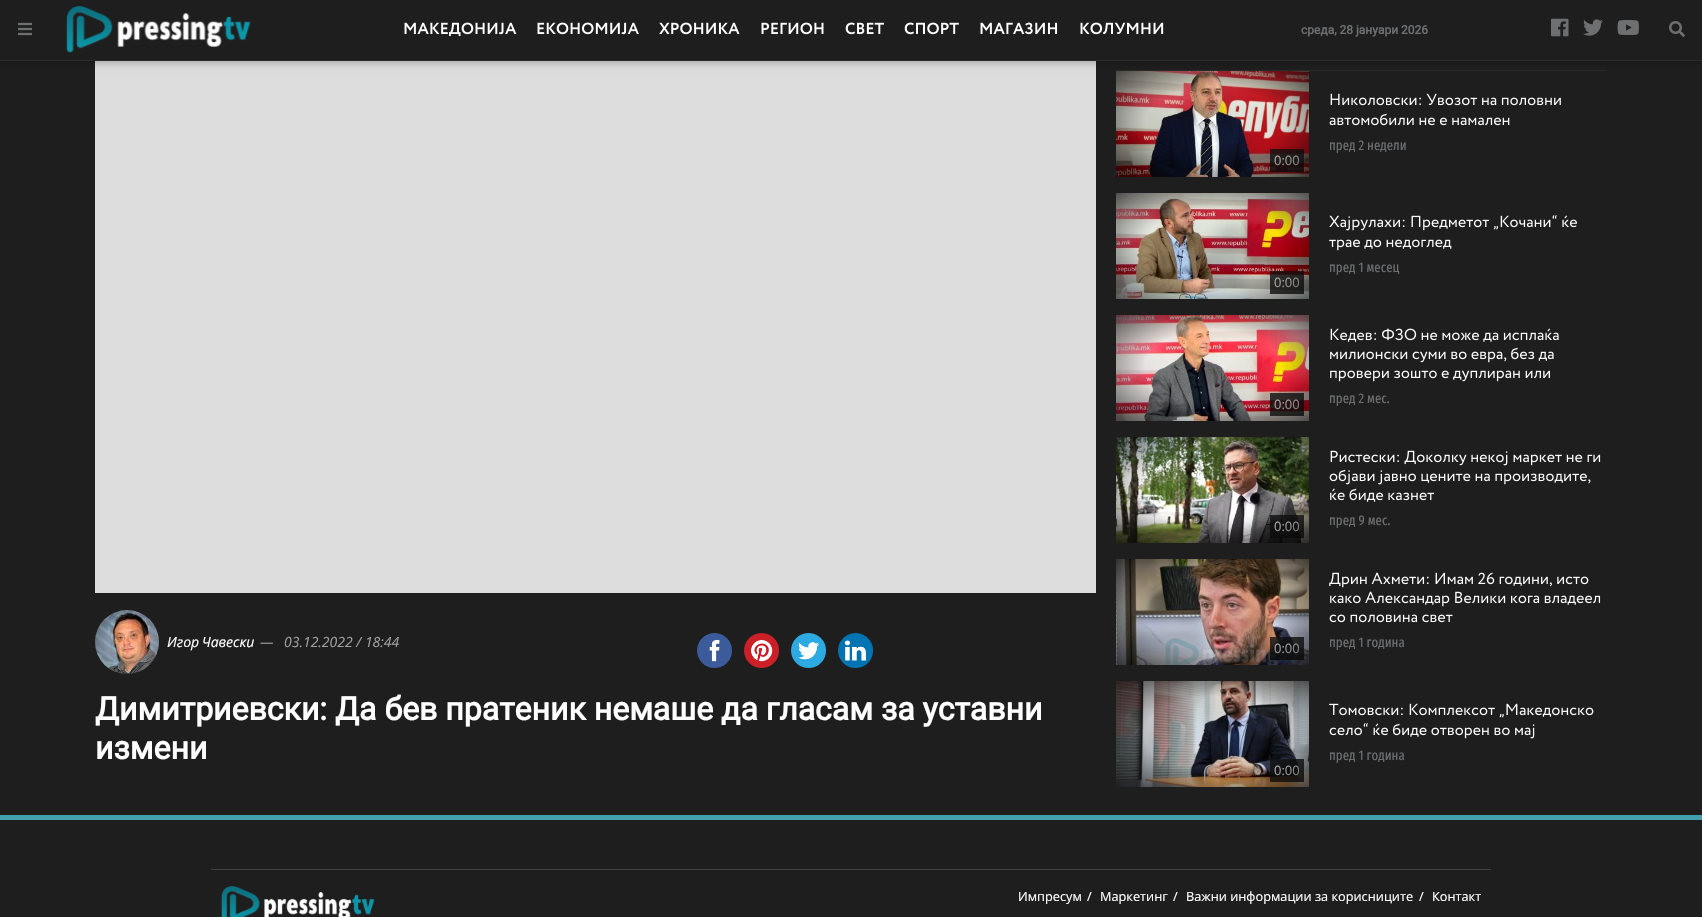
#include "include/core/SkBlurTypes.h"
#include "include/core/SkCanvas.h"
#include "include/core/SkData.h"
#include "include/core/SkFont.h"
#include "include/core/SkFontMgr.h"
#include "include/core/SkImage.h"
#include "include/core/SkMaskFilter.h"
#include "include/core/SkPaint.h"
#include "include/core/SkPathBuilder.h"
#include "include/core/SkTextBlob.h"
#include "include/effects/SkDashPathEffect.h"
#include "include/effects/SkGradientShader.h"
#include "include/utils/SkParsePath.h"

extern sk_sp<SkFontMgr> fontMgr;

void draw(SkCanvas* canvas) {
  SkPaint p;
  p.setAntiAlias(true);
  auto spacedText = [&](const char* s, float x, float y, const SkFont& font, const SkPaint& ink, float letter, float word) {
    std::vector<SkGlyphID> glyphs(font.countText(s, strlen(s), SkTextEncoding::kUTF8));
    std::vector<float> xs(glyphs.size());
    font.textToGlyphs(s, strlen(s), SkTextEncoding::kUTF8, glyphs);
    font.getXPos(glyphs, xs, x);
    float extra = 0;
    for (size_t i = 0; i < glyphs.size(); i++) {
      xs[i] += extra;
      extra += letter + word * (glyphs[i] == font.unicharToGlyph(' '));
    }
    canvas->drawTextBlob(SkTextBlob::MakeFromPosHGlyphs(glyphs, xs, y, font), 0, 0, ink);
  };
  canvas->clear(SkColorSetRGB(30, 30, 30));
  p.setColor(SkColorSetRGB(221, 221, 221));
  canvas->drawRect(SkRect::MakeLTRB(95, 61, 1096, 593), p);
  canvas->drawImageRect(SkImages::DeferredFromEncodedData(SkData::MakeFromFileName("images/15.png")), SkRect::MakeLTRB(95, 610, 159, 674), SkSamplingOptions());
  {
    const SkColor colors[] = {SkColorSetARGB(0, 0, 0, 0), SkColorSetARGB(0, 0, 0, 0), SkColorSetARGB(77, 0, 0, 0)};
    const float stops[] = {0, 0.4f, 1};
    p.setShader(SkGradientShader::MakeRadial({127, 642}, 45, colors, stops, 3, SkTileMode::kClamp));
    p.setAlpha(255);
  }
  canvas->drawCircle(127, 642, 32, p);
  canvas->drawImageRect(SkImages::DeferredFromEncodedData(SkData::MakeFromFileName("images/16.png")), SkRect::MakeLTRB(697, 633, 732, 668), SkSamplingOptions());
  canvas->drawImageRect(SkImages::DeferredFromEncodedData(SkData::MakeFromFileName("images/17.png")), SkRect::MakeLTRB(744, 633, 779, 668), SkSamplingOptions());
  canvas->drawImageRect(SkImages::DeferredFromEncodedData(SkData::MakeFromFileName("images/18.png")), SkRect::MakeLTRB(791, 633, 826, 668), SkSamplingOptions());
  canvas->drawImageRect(SkImages::DeferredFromEncodedData(SkData::MakeFromFileName("images/19.png")), SkRect::MakeLTRB(838, 633, 873, 668), SkSamplingOptions());
  p.setShader(nullptr);
  p.setColor(SkColorSetRGB(42, 42, 42));
  canvas->drawRect(SkRect::MakeLTRB(1116, 70, 1607, 71), p);
  canvas->drawImageRect(SkImages::DeferredFromEncodedData(SkData::MakeFromFileName("images/20.png")), SkRect::MakeLTRB(1330, 93, 1561, 106), SkSamplingOptions());
  canvas->drawImageRect(SkImages::DeferredFromEncodedData(SkData::MakeFromFileName("images/21.png")), SkRect::MakeLTRB(1329, 113, 1510, 126), SkSamplingOptions());
  canvas->drawImageRect(SkImages::DeferredFromEncodedData(SkData::MakeFromFileName("images/22.png")), SkRect::MakeLTRB(1116, 71, 1309, 177), SkSamplingOptions());
  p.setColor(SkColorSetARGB(204, 17, 17, 17));
  canvas->drawRect(SkRect::MakeLTRB(1270, 149, 1304, 172), p);
  canvas->drawImageRect(SkImages::DeferredFromEncodedData(SkData::MakeFromFileName("images/23.png")), SkRect::MakeLTRB(1329, 215, 1577, 231), SkSamplingOptions());
  canvas->drawImageRect(SkImages::DeferredFromEncodedData(SkData::MakeFromFileName("images/24.png")), SkRect::MakeLTRB(1329, 239, 1452, 251), SkSamplingOptions());
  canvas->drawImageRect(SkImages::DeferredFromEncodedData(SkData::MakeFromFileName("images/25.png")), SkRect::MakeLTRB(1116, 193, 1309, 299), SkSamplingOptions());
  canvas->drawRect(SkRect::MakeLTRB(1270, 271, 1304, 294), p);
  canvas->drawImageRect(SkImages::DeferredFromEncodedData(SkData::MakeFromFileName("images/26.png")), SkRect::MakeLTRB(1116, 315, 1309, 421), SkSamplingOptions());
  canvas->drawRect(SkRect::MakeLTRB(1270, 393, 1304, 416), p);
  canvas->drawImageRect(SkImages::DeferredFromEncodedData(SkData::MakeFromFileName("images/27.png")), SkRect::MakeLTRB(1330, 328, 1559, 342), SkSamplingOptions());
  canvas->drawImageRect(SkImages::DeferredFromEncodedData(SkData::MakeFromFileName("images/28.png")), SkRect::MakeLTRB(1330, 347, 1554, 363), SkSamplingOptions());
  canvas->drawImageRect(SkImages::DeferredFromEncodedData(SkData::MakeFromFileName("images/29.png")), SkRect::MakeLTRB(1330, 370, 1550, 382), SkSamplingOptions());
  canvas->drawImageRect(SkImages::DeferredFromEncodedData(SkData::MakeFromFileName("images/30.png")), SkRect::MakeLTRB(1116, 437, 1309, 543), SkSamplingOptions());
  canvas->drawRect(SkRect::MakeLTRB(1270, 515, 1304, 538), p);
  canvas->drawImageRect(SkImages::DeferredFromEncodedData(SkData::MakeFromFileName("images/31.png")), SkRect::MakeLTRB(1330, 450, 1601, 466), SkSamplingOptions());
  canvas->drawImageRect(SkImages::DeferredFromEncodedData(SkData::MakeFromFileName("images/32.png")), SkRect::MakeLTRB(1329, 469, 1591, 485), SkSamplingOptions());
  canvas->drawImageRect(SkImages::DeferredFromEncodedData(SkData::MakeFromFileName("images/33.png")), SkRect::MakeLTRB(1330, 488, 1435, 502), SkSamplingOptions());
  canvas->drawImageRect(SkImages::DeferredFromEncodedData(SkData::MakeFromFileName("images/34.png")), SkRect::MakeLTRB(1116, 559, 1309, 665), SkSamplingOptions());
  canvas->drawRect(SkRect::MakeLTRB(1270, 637, 1304, 660), p);
  canvas->drawImageRect(SkImages::DeferredFromEncodedData(SkData::MakeFromFileName("images/35.png")), SkRect::MakeLTRB(1329, 572, 1589, 588), SkSamplingOptions());
  canvas->drawImageRect(SkImages::DeferredFromEncodedData(SkData::MakeFromFileName("images/36.png")), SkRect::MakeLTRB(1330, 591, 1601, 607), SkSamplingOptions());
  canvas->drawImageRect(SkImages::DeferredFromEncodedData(SkData::MakeFromFileName("images/37.png")), SkRect::MakeLTRB(1329, 614, 1453, 623), SkSamplingOptions());
  canvas->drawImageRect(SkImages::DeferredFromEncodedData(SkData::MakeFromFileName("images/38.png")), SkRect::MakeLTRB(1329, 703, 1594, 718), SkSamplingOptions());
  canvas->drawImageRect(SkImages::DeferredFromEncodedData(SkData::MakeFromFileName("images/39.png")), SkRect::MakeLTRB(1329, 723, 1535, 739), SkSamplingOptions());
  canvas->drawImageRect(SkImages::DeferredFromEncodedData(SkData::MakeFromFileName("images/40.png")), SkRect::MakeLTRB(1116, 681, 1309, 787), SkSamplingOptions());
  canvas->drawRect(SkRect::MakeLTRB(1270, 759, 1304, 782), p);
  p.setColor(SkColorSetRGB(67, 159, 172));
  canvas->drawRect(SkRect::MakeLTRB(0, 815, 1702, 820), p);
  p.setColor(SkColorSetRGB(64, 64, 64));
  canvas->drawRect(SkRect::MakeLTRB(211, 869, 1491, 870), p);
  canvas->drawImageRect(SkImages::DeferredFromEncodedData(SkData::MakeFromFileName("images/41.png")), SkRect::MakeLTRB(221, 886, 375, 917), SkSamplingOptions());
  SkFont font1(fontMgr->matchFamilyStyle("Open Sans", SkFontStyle::Italic()), 14);
  font1.setSubpixel(true);
  p.setColor(SK_ColorWHITE);
  spacedText("Игор Чавески", 167, 647, font1, p, 0, -1);
  p.setColor(SkColorSetRGB(160, 160, 160));
  canvas->drawString("—", 260, 647, font1, p);
  canvas->drawString("03.12.2022 / 18:44", 284, 647, font1, p);
  SkFont font2(fontMgr->matchFamilyStyle("Roboto", SkFontStyle::Bold()), 32);
  font2.setSubpixel(true);
  p.setColor(SK_ColorWHITE);
  canvas->drawString("Димитриевски: Да бев пратеник немаше да гласам за уставни", 95, 720, font2, p);
  canvas->drawString("измени", 95, 759, font2, p);
  SkFont font3(fontMgr->matchFamilyStyle("Fira Sans Extra Condensed", SkFontStyle::Normal()), 14);
  font3.setSubpixel(true);
  p.setColor(SkColorSetRGB(109, 111, 113));
  canvas->drawString("пред 2 недели", 1329, 150, font3, p);
  SkFont font4(fontMgr->matchFamilyStyle("Open Sans", SkFontStyle::Normal()), 13);
  font4.setSubpixel(true);
  p.setColor(SkColorSetRGB(213, 211, 210));
  canvas->drawString("0:00", 1274, 165, font4, p);
  {
    const SkColor colors[] = {SkColorSetARGB(0, 0, 0, 0), SkColorSetARGB(0, 0, 0, 0), SkColorSetARGB(166, 0, 0, 0)};
    const float stops[] = {0, 0.5f, 1};
    SkMatrix m = SkMatrix::Translate(1213, 124).preScale(136, 75);
    p.setShader(SkGradientShader::MakeRadial({0, 0}, 1, colors, stops, 3, SkTileMode::kClamp, 0, &m));
    p.setAlpha(255);
  }
  canvas->drawRect(SkRect::MakeLTRB(1116, 71, 1309, 177), p);
  p.setShader(nullptr);
  p.setColor(SkColorSetARGB(77, 0, 0, 0));
  p.setMaskFilter(SkMaskFilter::MakeBlur(kNormal_SkBlurStyle, 4));
  canvas->drawRect(SkRect::MakeLTRB(-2, -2, 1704, 62), p);
  p.setMaskFilter(nullptr);
  p.setColor(SkColorSetRGB(42, 42, 42));
  canvas->drawRect(SkRect::MakeLTRB(0, 60, 1702, 61), p);
  p.setColor(SkColorSetRGB(30, 30, 30));
  canvas->drawRect(SkRect::MakeLTRB(0, 0, 1702, 60), p);
  canvas->drawImageRect(SkImages::DeferredFromEncodedData(SkData::MakeFromFileName("images/13.png")), SkRect::MakeLTRB(1617, 20, 1639, 35), SkSamplingOptions());
  canvas->drawImageRect(SkImages::DeferredFromEncodedData(SkData::MakeFromFileName("images/12.png")), SkRect::MakeLTRB(1583, 19, 1603, 36), SkSamplingOptions());
  canvas->drawImageRect(SkImages::DeferredFromEncodedData(SkData::MakeFromFileName("images/11.png")), SkRect::MakeLTRB(1551, 18, 1569, 37), SkSamplingOptions());
  canvas->drawImageRect(SkImages::DeferredFromEncodedData(SkData::MakeFromFileName("images/10.png")), SkRect::MakeLTRB(1080, 22, 1164, 35), SkSamplingOptions());
  canvas->drawImageRect(SkImages::DeferredFromEncodedData(SkData::MakeFromFileName("images/9.png")), SkRect::MakeLTRB(980, 22, 1058, 35), SkSamplingOptions());
  canvas->drawImageRect(SkImages::DeferredFromEncodedData(SkData::MakeFromFileName("images/8.png")), SkRect::MakeLTRB(904, 22, 959, 35), SkSamplingOptions());
  canvas->drawImageRect(SkImages::DeferredFromEncodedData(SkData::MakeFromFileName("images/7.png")), SkRect::MakeLTRB(845, 22, 884, 35), SkSamplingOptions());
  canvas->drawImageRect(SkImages::DeferredFromEncodedData(SkData::MakeFromFileName("images/6.png")), SkRect::MakeLTRB(761, 22, 824, 35), SkSamplingOptions());
  canvas->drawImageRect(SkImages::DeferredFromEncodedData(SkData::MakeFromFileName("images/5.png")), SkRect::MakeLTRB(659, 22, 740, 35), SkSamplingOptions());
  canvas->drawImageRect(SkImages::DeferredFromEncodedData(SkData::MakeFromFileName("images/4.png")), SkRect::MakeLTRB(537, 22, 639, 35), SkSamplingOptions());
  canvas->drawImageRect(SkImages::DeferredFromEncodedData(SkData::MakeFromFileName("images/3.png")), SkRect::MakeLTRB(404, 22, 517, 36), SkSamplingOptions());
  canvas->drawImageRect(SkImages::DeferredFromEncodedData(SkData::MakeFromFileName("images/14.png")), SkRect::MakeLTRB(1669, 21, 1685, 37), SkSamplingOptions());
  SkFont font5(fontMgr->matchFamilyStyle("Roboto", SkFontStyle::Bold()), 12);
  font5.setSubpixel(true);
  p.setColor(SkColorSetRGB(109, 111, 113));
  canvas->drawString("среда, 28 јануари 2026", 1301, 34, font5, p);
  canvas->drawImageRect(SkImages::DeferredFromEncodedData(SkData::MakeFromFileName("images/2.png")), SkRect::MakeLTRB(66, 6, 251, 53), SkSamplingOptions());
  canvas->drawImageRect(SkImages::DeferredFromEncodedData(SkData::MakeFromFileName("images/1.png")), SkRect::MakeLTRB(18, 22, 32, 36), SkSamplingOptions());
  canvas->drawString("пред 1 месец", 1329, 272, font3, p);
  p.setColor(SkColorSetRGB(213, 211, 210));
  canvas->drawString("0:00", 1274, 287, font4, p);
  {
    const SkColor colors[] = {SkColorSetARGB(0, 0, 0, 0), SkColorSetARGB(0, 0, 0, 0), SkColorSetARGB(166, 0, 0, 0)};
    const float stops[] = {0, 0.5f, 1};
    SkMatrix m = SkMatrix::Translate(1213, 246).preScale(136, 75);
    p.setShader(SkGradientShader::MakeRadial({0, 0}, 1, colors, stops, 3, SkTileMode::kClamp, 0, &m));
    p.setAlpha(255);
  }
  canvas->drawRect(SkRect::MakeLTRB(1116, 193, 1309, 299), p);
  p.setShader(nullptr);
  p.setColor(SkColorSetRGB(213, 211, 210));
  canvas->drawString("0:00", 1274, 409, font4, p);
  {
    const SkColor colors[] = {SkColorSetARGB(0, 0, 0, 0), SkColorSetARGB(0, 0, 0, 0), SkColorSetARGB(166, 0, 0, 0)};
    const float stops[] = {0, 0.5f, 1};
    SkMatrix m = SkMatrix::Translate(1213, 368).preScale(136, 75);
    p.setShader(SkGradientShader::MakeRadial({0, 0}, 1, colors, stops, 3, SkTileMode::kClamp, 0, &m));
    p.setAlpha(255);
  }
  canvas->drawRect(SkRect::MakeLTRB(1116, 315, 1309, 421), p);
  p.setShader(nullptr);
  p.setColor(SkColorSetRGB(109, 111, 113));
  canvas->drawString("пред 2 мес.", 1329, 403, font3, p);
  p.setColor(SkColorSetRGB(213, 211, 210));
  canvas->drawString("0:00", 1274, 531, font4, p);
  {
    const SkColor colors[] = {SkColorSetARGB(0, 0, 0, 0), SkColorSetARGB(0, 0, 0, 0), SkColorSetARGB(166, 0, 0, 0)};
    const float stops[] = {0, 0.5f, 1};
    SkMatrix m = SkMatrix::Translate(1213, 490).preScale(136, 75);
    p.setShader(SkGradientShader::MakeRadial({0, 0}, 1, colors, stops, 3, SkTileMode::kClamp, 0, &m));
    p.setAlpha(255);
  }
  canvas->drawRect(SkRect::MakeLTRB(1116, 437, 1309, 543), p);
  p.setShader(nullptr);
  p.setColor(SkColorSetRGB(109, 111, 113));
  canvas->drawString("пред 9 мес.", 1329, 525, font3, p);
  p.setColor(SkColorSetRGB(213, 211, 210));
  canvas->drawString("0:00", 1274, 653, font4, p);
  {
    const SkColor colors[] = {SkColorSetARGB(0, 0, 0, 0), SkColorSetARGB(0, 0, 0, 0), SkColorSetARGB(166, 0, 0, 0)};
    const float stops[] = {0, 0.5f, 1};
    SkMatrix m = SkMatrix::Translate(1213, 612).preScale(136, 75);
    p.setShader(SkGradientShader::MakeRadial({0, 0}, 1, colors, stops, 3, SkTileMode::kClamp, 0, &m));
    p.setAlpha(255);
  }
  canvas->drawRect(SkRect::MakeLTRB(1116, 559, 1309, 665), p);
  p.setShader(nullptr);
  p.setColor(SkColorSetRGB(109, 111, 113));
  canvas->drawString("пред 1 година", 1329, 647, font3, p);
  canvas->drawString("пред 1 година", 1329, 760, font3, p);
  p.setColor(SkColorSetRGB(213, 211, 210));
  canvas->drawString("0:00", 1274, 775, font4, p);
  {
    const SkColor colors[] = {SkColorSetARGB(0, 0, 0, 0), SkColorSetARGB(0, 0, 0, 0), SkColorSetARGB(166, 0, 0, 0)};
    const float stops[] = {0, 0.5f, 1};
    SkMatrix m = SkMatrix::Translate(1213, 734).preScale(136, 75);
    p.setShader(SkGradientShader::MakeRadial({0, 0}, 1, colors, stops, 3, SkTileMode::kClamp, 0, &m));
    p.setAlpha(255);
  }
  canvas->drawRect(SkRect::MakeLTRB(1116, 681, 1309, 787), p);
  SkFont font6(fontMgr->matchFamilyStyle("Open Sans", SkFontStyle::Normal()), 12.75f);
  font6.setSubpixel(true);
  p.setShader(nullptr);
  p.setColor(SK_ColorWHITE);
  canvas->drawString("Импресум", 1018, 901, font6, p);
  canvas->drawString("/", 1087, 901, font6, p);
  canvas->drawString("Маркетинг", 1100, 901, font6, p);
  canvas->drawString("/", 1173, 901, font6, p);
  canvas->drawString("Важни информации за корисниците", 1186, 901, font6, p);
  canvas->drawString("/", 1419, 901, font6, p);
  canvas->drawString("Контакт", 1432, 901, font6, p);
}
